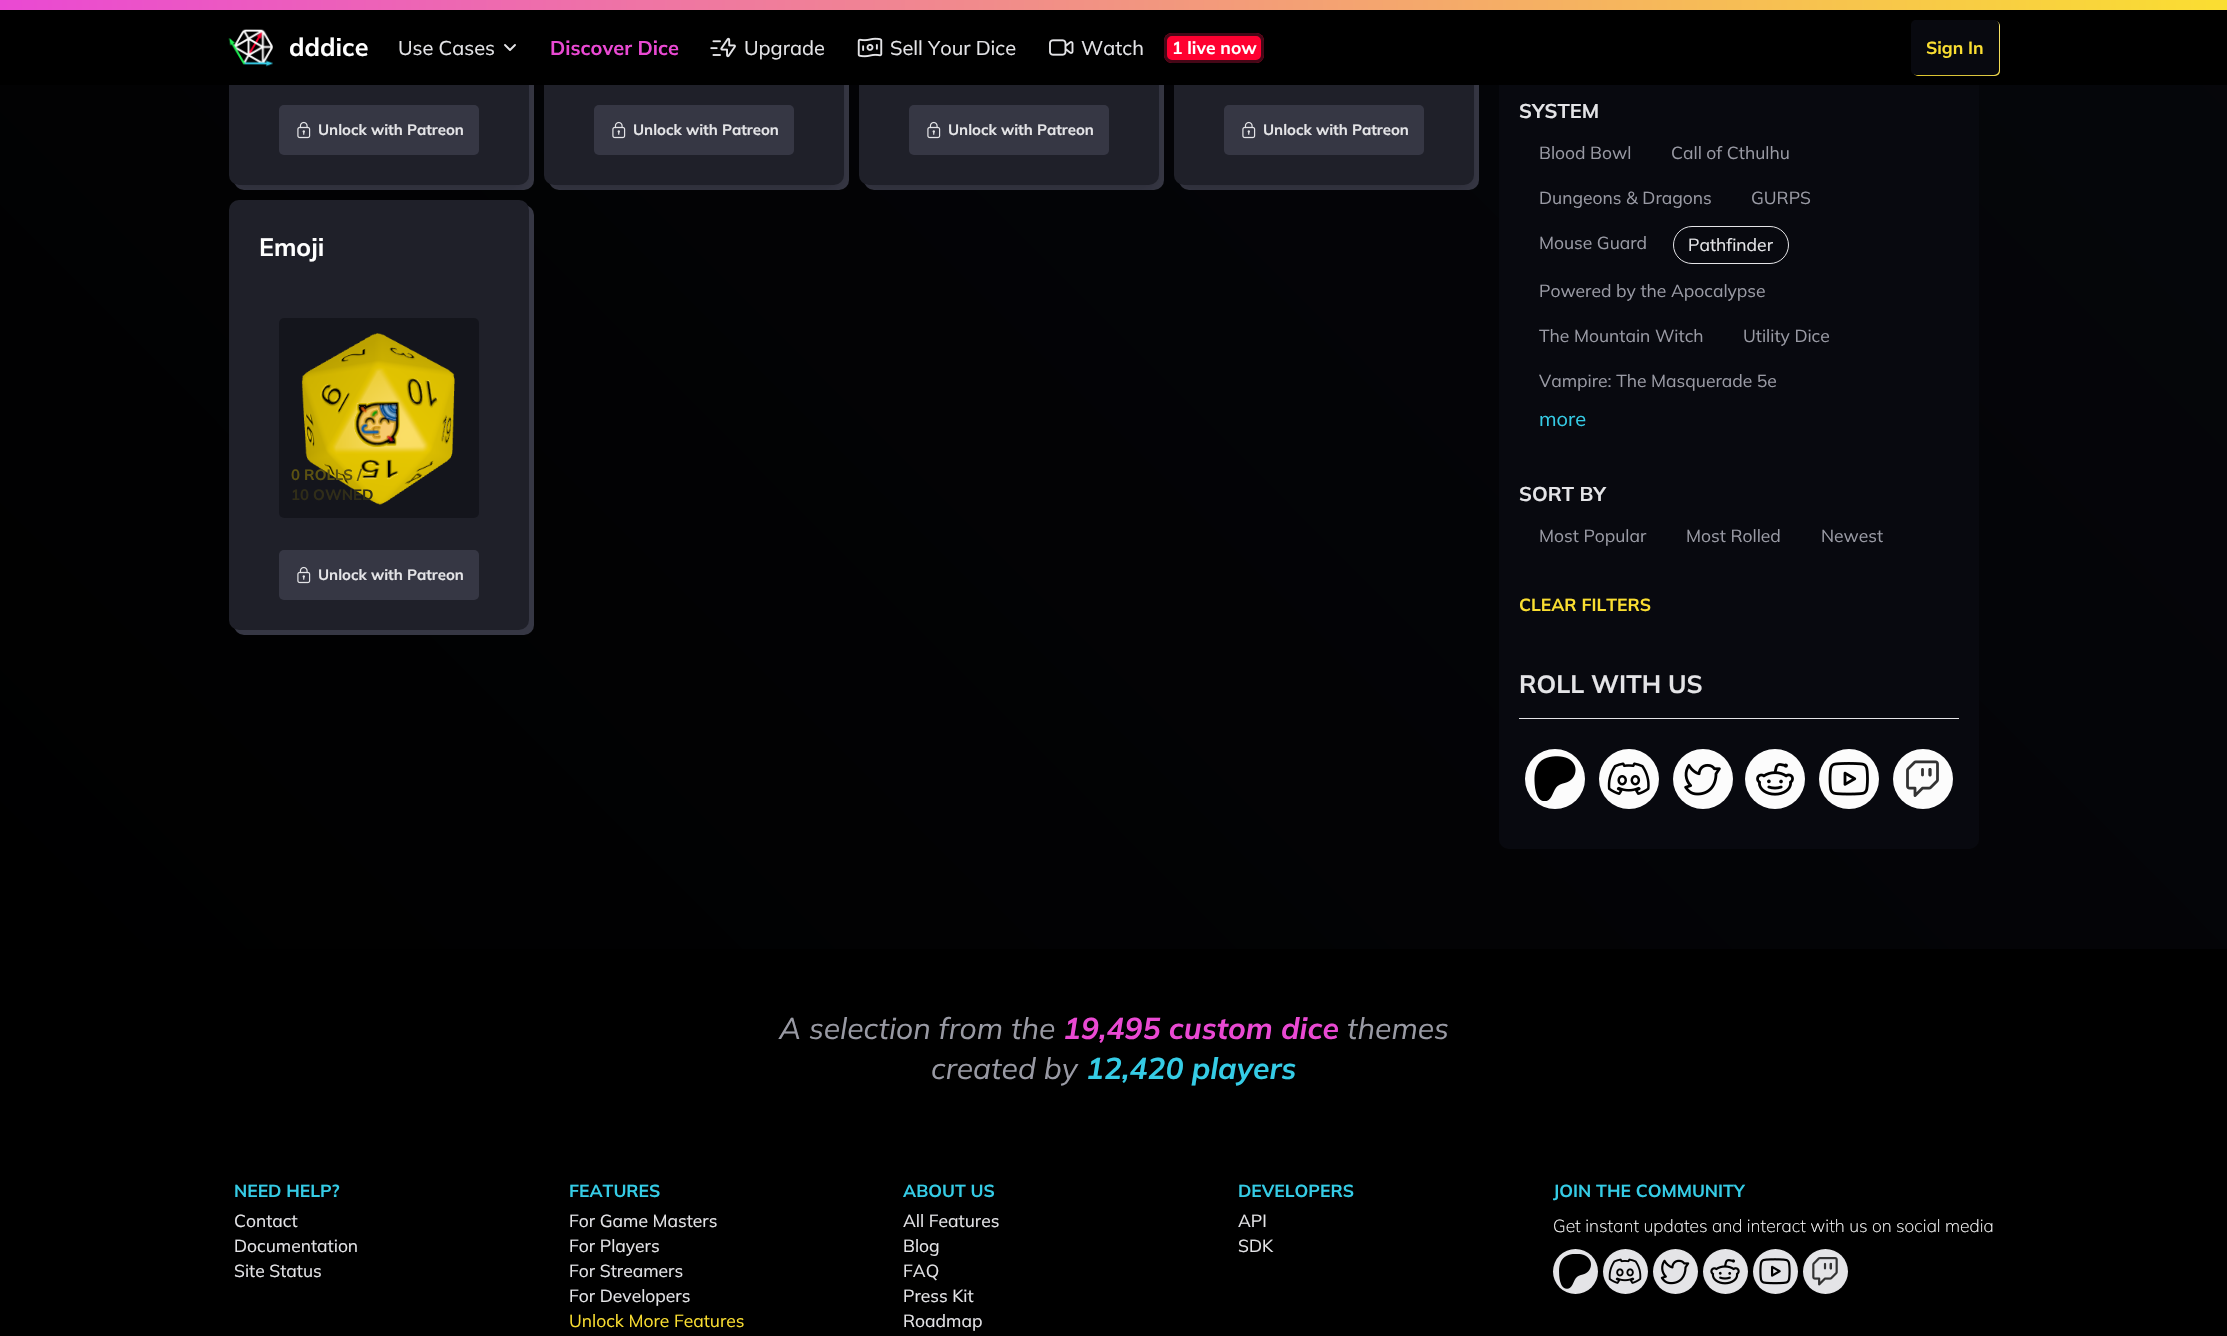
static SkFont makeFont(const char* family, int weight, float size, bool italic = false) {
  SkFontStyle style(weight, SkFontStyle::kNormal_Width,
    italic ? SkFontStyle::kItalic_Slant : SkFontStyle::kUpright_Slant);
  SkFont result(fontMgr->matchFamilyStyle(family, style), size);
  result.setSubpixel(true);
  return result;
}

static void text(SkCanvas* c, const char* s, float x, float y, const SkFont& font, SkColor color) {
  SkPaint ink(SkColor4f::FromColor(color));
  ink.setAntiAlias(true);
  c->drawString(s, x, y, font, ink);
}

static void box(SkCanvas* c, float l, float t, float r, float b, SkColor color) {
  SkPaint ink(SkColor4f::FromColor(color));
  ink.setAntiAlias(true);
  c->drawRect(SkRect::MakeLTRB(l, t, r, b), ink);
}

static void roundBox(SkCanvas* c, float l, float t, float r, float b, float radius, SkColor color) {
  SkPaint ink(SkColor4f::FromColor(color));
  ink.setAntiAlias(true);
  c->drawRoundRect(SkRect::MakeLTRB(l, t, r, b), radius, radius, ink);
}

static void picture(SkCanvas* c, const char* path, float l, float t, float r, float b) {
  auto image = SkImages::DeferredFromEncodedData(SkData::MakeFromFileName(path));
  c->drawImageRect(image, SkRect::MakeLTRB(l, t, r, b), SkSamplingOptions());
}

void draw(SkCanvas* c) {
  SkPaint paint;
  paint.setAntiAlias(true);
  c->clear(0xffffffff);
  {
    const SkColor colors[] = {0xff000000, 0xff08090f};
    const float stops[] = {0, 1};
    const SkPoint ends[] = {{-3.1f, 946}, {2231, -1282}};
    paint.setShader(SkGradientShader::MakeLinear(ends, colors, stops, 2, SkTileMode::kClamp));
    paint.setAlpha(255);
  }
  c->drawRect(SkRect::MakeLTRB(0, 85, 2227, 949), paint);
  roundBox(c, 234, -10, 534, 190, 10, 0xff363744);
  paint.setShader(nullptr);
  paint.setColor(0x1a000000);
  paint.setMaskFilter(SkMaskFilter::MakeBlur(kNormal_SkBlurStyle, 4));
  c->drawRoundRect(SkRect::MakeLTRB(234, -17, 524, 185), 5, 5, paint);
  paint.setMaskFilter(nullptr);
  roundBox(c, 549, -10, 849, 190, 10, 0xff363744);
  roundBox(c, 234, 205, 534, 635, 10, 0xff363744);
  paint.setMaskFilter(SkMaskFilter::MakeBlur(kNormal_SkBlurStyle, 9.5f));
  c->drawRoundRect(SkRect::MakeLTRB(233, -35, 525, 194), 6, 6, paint);
  paint.setMaskFilter(nullptr);
  roundBox(c, 229, -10, 529, 185, 10, 0xff1f2029);
  paint.setMaskFilter(SkMaskFilter::MakeBlur(kNormal_SkBlurStyle, 4));
  c->drawRoundRect(SkRect::MakeLTRB(549, -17, 839, 185), 5, 5, paint);
  paint.setMaskFilter(nullptr);
  roundBox(c, 864, -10, 1164, 190, 10, 0xff363744);
  paint.setMaskFilter(SkMaskFilter::MakeBlur(kNormal_SkBlurStyle, 9.5f));
  c->drawRoundRect(SkRect::MakeLTRB(548, -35, 840, 194), 6, 6, paint);
  paint.setMaskFilter(nullptr);
  roundBox(c, 544, -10, 844, 185, 10, 0xff1f2029);
  paint.setMaskFilter(SkMaskFilter::MakeBlur(kNormal_SkBlurStyle, 4));
  c->drawRoundRect(SkRect::MakeLTRB(864, -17, 1154, 185), 5, 5, paint);
  paint.setMaskFilter(nullptr);
  roundBox(c, 1179, -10, 1479, 190, 10, 0xff363744);
  paint.setMaskFilter(SkMaskFilter::MakeBlur(kNormal_SkBlurStyle, 9.5f));
  c->drawRoundRect(SkRect::MakeLTRB(863, -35, 1155, 194), 6, 6, paint);
  paint.setMaskFilter(nullptr);
  roundBox(c, 859, -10, 1159, 185, 10, 0xff1f2029);
  paint.setMaskFilter(SkMaskFilter::MakeBlur(kNormal_SkBlurStyle, 4));
  c->drawRoundRect(SkRect::MakeLTRB(1179, -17, 1469, 185), 5, 5, paint);
  paint.setMaskFilter(nullptr);
  roundBox(c, 1499, -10, 1979, 849, 10, 0xff08090f);
  paint.setMaskFilter(SkMaskFilter::MakeBlur(kNormal_SkBlurStyle, 9.5f));
  c->drawRoundRect(SkRect::MakeLTRB(1178, -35, 1470, 194), 6, 6, paint);
  paint.setMaskFilter(nullptr);
  roundBox(c, 1174, -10, 1474, 185, 10, 0xff1f2029);
  {
    const SkColor colors[] = {0xffea49d3, 0xfffade31};
    const float stops[] = {0, 1};
    const SkPoint ends[] = {{0, 5}, {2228, 5}};
    paint.setShader(SkGradientShader::MakeLinear(ends, colors, stops, 2, SkTileMode::kClamp));
    paint.setAlpha(255);
  }
  c->drawRect(SkRect::MakeLTRB(0, 0, 2227, 10), paint);
  box(c, 0, 10, 2227, 85, 0xff000000);
  picture(c, "img_01.png", 228, 29, 273, 67);
  SkFont face1 = makeFont("Mulish", 700, 25);
  text(c, "dddice", 289, 56, face1, 0xffffffff);
  SkFont face2 = makeFont("Mulish", 400, 20);
  text(c, "Use Cases", 398, 55, face2, 0xffe4e4e7);
  paint.setStyle(SkPaint::kStroke_Style);
  paint.setStrokeWidth(1.9f);
  paint.setStrokeCap(SkPaint::kRound_Cap);
  paint.setStrokeJoin(SkPaint::kRound_Join);
  paint.setShader(nullptr);
  paint.setColor(0xffe4e4e7);
  c->drawPath(SkPathBuilder().moveTo(505, 45).lineTo(510, 50).lineTo(515, 45).detach(), paint);
  SkFont face3 = makeFont("Mulish", 700, 20);
  text(c, "Discover Dice", 550, 55, face3, 0xffea49d3);
  picture(c, "img_02.png", 710, 37, 736, 58);
  text(c, "Upgrade", 744, 55, face2, 0xffe4e4e7);
  picture(c, "img_03.png", 857, 37, 883, 58);
  text(c, "Sell Your Dice", 890, 55, face2, 0xffe4e4e7);
  picture(c, "img_04.png", 1049, 39, 1074, 56);
  text(c, "Watch", 1081, 55, face2, 0xffe4e4e7);
  roundBox(c, 1164, 33, 1264, 63, 8, 0xffff0030);
  paint.setStrokeWidth(3);
  paint.setStrokeCap(SkPaint::kButt_Cap);
  paint.setStrokeJoin(SkPaint::kMiter_Join);
  paint.setColor(0xbf08090f);
  c->drawRoundRect(SkRect::MakeLTRB(1165.5f, 34.5f, 1262.5f, 61.5f), 6.5f, 6.5f, paint);
  SkFont face4 = makeFont("Mulish", 700, 17.5f);
  text(c, "1 live now", 1172, 54, face4, 0xffffffff);
  paint.setStyle(SkPaint::kFill_Style);
  {
    const SkColor colors[] = {0xfffade31, 0xfffde96f};
    const float stops[] = {0, 1};
    const SkPoint ends[] = {{1931, 88}, {1981, 9}};
    paint.setShader(SkGradientShader::MakeLinear(ends, colors, stops, 2, SkTileMode::kClamp));
    paint.setAlpha(255);
  }
  c->drawRoundRect(SkRect::MakeLTRB(1913, 21, 2000, 76), 5, 5, paint);
  paint.setShader(nullptr);
  paint.setColor(0x1a000000);
  paint.setMaskFilter(SkMaskFilter::MakeBlur(kNormal_SkBlurStyle, 4));
  c->drawRect(SkRect::MakeLTRB(1916, 30, 1994, 75), paint);
  paint.setMaskFilter(nullptr);
  paint.setMaskFilter(SkMaskFilter::MakeBlur(kNormal_SkBlurStyle, 9.5f));
  c->drawRoundRect(SkRect::MakeLTRB(1915, 36, 1995, 84), 1, 1, paint);
  paint.setMaskFilter(nullptr);
  roundBox(c, 1911, 20, 1999, 75, 5, 0xff08090f);
  text(c, "Sign In", 1926, 54, face4, 0xfffade31);
  roundBox(c, 279, 105, 479, 155, 5, 0xff363744);
  picture(c, "img_05.png", 297, 121, 311, 139);
  SkFont face5 = makeFont("Mulish", 700, 15);
  text(c, "Unlock with Patreon", 318, 135, face5, 0xffe4e4e7);
  roundBox(c, 594, 105, 794, 155, 5, 0xff363744);
  picture(c, "img_05.png", 612, 121, 626, 139);
  text(c, "Unlock with Patreon", 633, 135, face5, 0xffe4e4e7);
  roundBox(c, 909, 105, 1109, 155, 5, 0xff363744);
  picture(c, "img_05.png", 927, 121, 941, 139);
  text(c, "Unlock with Patreon", 948, 135, face5, 0xffe4e4e7);
  roundBox(c, 1224, 105, 1424, 155, 5, 0xff363744);
  picture(c, "img_05.png", 1242, 121, 1256, 139);
  text(c, "Unlock with Patreon", 1263, 135, face5, 0xffe4e4e7);
  roundBox(c, 229, 200, 529, 630, 10, 0xff1f2029);
  text(c, "Emoji", 259, 256, face1, 0xffffffff);
  roundBox(c, 279, 318, 479, 518, 5, 0xff14151c);
  picture(c, "img_06.png", 301, 333, 455, 505);
  text(c, "0 ROLLS /", 291, 480, face5, 0xff5c5211);
  text(c, "10 OWNED", 291, 500, face5, 0xff302d18);
  roundBox(c, 279, 550, 479, 600, 5, 0xff363744);
  picture(c, "img_05.png", 297, 566, 311, 584);
  text(c, "Unlock with Patreon", 318, 580, face5, 0xffe4e4e7);
  text(c, "SYSTEM", 1519, 118, face3, 0xffe4e4e7);
  SkFont face6 = makeFont("Mulish", 400, 17.5f);
  text(c, "Blood Bowl", 1539, 159, face6, 0xff999aa4);
  text(c, "Call of Cthulhu", 1671, 159, face6, 0xff999aa4);
  text(c, "Dungeons & Dragons", 1539, 204, face6, 0xff999aa4);
  text(c, "GURPS", 1751, 204, face6, 0xff999aa4);
  text(c, "Mouse Guard", 1539, 249, face6, 0xff999aa4);
  paint.setStyle(SkPaint::kStroke_Style);
  paint.setStrokeWidth(1);
  paint.setColor(0xffe4e4e7);
  c->drawRoundRect(SkRect::MakeLTRB(1673.5f, 226.5f, 1788.5f, 263.5f), 18.5f, 18.5f, paint);
  text(c, "Pathfinder", 1688, 251, face6, 0xffe4e4e7);
  text(c, "Powered by the Apocalypse", 1539, 297, face6, 0xff999aa4);
  text(c, "The Mountain Witch", 1539, 342, face6, 0xff999aa4);
  text(c, "Utility Dice", 1743, 342, face6, 0xff999aa4);
  text(c, "Vampire: The Masquerade 5e", 1539, 387, face6, 0xff999aa4);
  text(c, "more", 1539, 426, face2, 0xff35cce6);
  text(c, "SORT BY", 1519, 501, face3, 0xffe4e4e7);
  text(c, "Most Popular", 1539, 542, face6, 0xff999aa4);
  text(c, "Most Rolled", 1686, 542, face6, 0xff999aa4);
  text(c, "Newest", 1821, 542, face6, 0xff999aa4);
  text(c, "CLEAR FILTERS", 1519, 611, face4, 0xfffade31);
  box(c, 1519, 718, 1959, 719, 0xffe4e4e7);
  text(c, "ROLL WITH US", 1519, 693, face1, 0xffe4e4e7);
  paint.setStyle(SkPaint::kFill_Style);
  paint.setColor(0xfffcfcfc);
  c->drawCircle(1555, 779, 30, paint);
  picture(c, "img_07.png", 1534, 756, 1576, 801);
  c->drawCircle(1629, 779, 30, paint);
  picture(c, "img_08.png", 1607, 762, 1650, 795);
  c->drawCircle(1703, 779, 30, paint);
  picture(c, "img_09.png", 1684, 763, 1721, 796);
  c->drawCircle(1775, 779, 30, paint);
  picture(c, "img_10.png", 1756, 763, 1794, 796);
  c->drawCircle(1849, 779, 30, paint);
  picture(c, "img_11.png", 1828, 762, 1869, 796);
  c->drawCircle(1923, 779, 30, paint);
  picture(c, "img_12.png", 1906, 760, 1939, 797);
  box(c, 0, 949, 2227, 1336, 0xff000000);
  SkFont face7 = makeFont("Mulish", 400, 30, true);
  text(c, "A selection from the", 779, 1039, face7, 0xff999aa4);
  SkFont face8 = makeFont("Mulish", 700, 30, true);
  text(c, "19,495 custom dice", 1063, 1039, face8, 0xffea49d3);
  text(c, "themes", 1347, 1039, face7, 0xff999aa4);
  text(c, "created by", 931, 1079, face7, 0xff999aa4);
  text(c, "12,420 players", 1086, 1079, face8, 0xff35cce6);
  text(c, "NEED HELP?", 234, 1197, face4, 0xff35cce6);
  text(c, "Contact", 234, 1227, face6, 0xffe4e4e7);
  text(c, "Documentation", 234, 1252, face6, 0xffe4e4e7);
  text(c, "Site Status", 234, 1277, face6, 0xffe4e4e7);
  text(c, "FEATURES", 569, 1197, face4, 0xff35cce6);
  text(c, "For Game Masters", 569, 1227, face6, 0xffe4e4e7);
  text(c, "For Players", 569, 1252, face6, 0xffe4e4e7);
  text(c, "For Streamers", 569, 1277, face6, 0xffe4e4e7);
  text(c, "For Developers", 569, 1302, face6, 0xffe4e4e7);
  text(c, "Unlock More Features", 569, 1327, face6, 0xfffade31);
  text(c, "ABOUT US", 903, 1197, face4, 0xff35cce6);
  text(c, "All Features", 903, 1227, face6, 0xffe4e4e7);
  text(c, "Blog", 903, 1252, face6, 0xffe4e4e7);
  text(c, "FAQ", 903, 1277, face6, 0xffe4e4e7);
  text(c, "Press Kit", 903, 1302, face6, 0xffe4e4e7);
  text(c, "Roadmap", 903, 1327, face6, 0xffe4e4e7);
  text(c, "DEVELOPERS", 1238, 1197, face4, 0xff35cce6);
  text(c, "API", 1238, 1227, face6, 0xffe4e4e7);
  text(c, "SDK", 1238, 1252, face6, 0xffe4e4e7);
  text(c, "JOIN THE COMMUNITY", 1553, 1197, face4, 0xff35cce6);
  SkFont face9 = makeFont("Mulish", 200, 17.5f);
  text(c, "Get instant updates and interact with us on social media", 1553, 1232, face9, 0xffffffff);
  paint.setColor(0xffe4e4e7);
  c->drawCircle(1575.5f, 1271.5f, 22.5f, paint);
  picture(c, "img_13.png", 1559, 1254, 1591, 1289);
  c->drawCircle(1625.5f, 1271.5f, 22.5f, paint);
  picture(c, "img_14.png", 1608, 1258, 1642, 1284);
  c->drawCircle(1675.5f, 1271.5f, 22.5f, paint);
  picture(c, "img_15.png", 1660, 1259, 1690, 1285);
  c->drawCircle(1725.5f, 1271.5f, 22.5f, paint);
  picture(c, "img_16.png", 1710, 1259, 1740, 1285);
  c->drawCircle(1775.5f, 1271.5f, 22.5f, paint);
  picture(c, "img_17.png", 1759, 1258, 1791, 1285);
  c->drawCircle(1825.5f, 1271.5f, 22.5f, paint);
  picture(c, "img_18.png", 1812, 1257, 1838, 1286);
}
